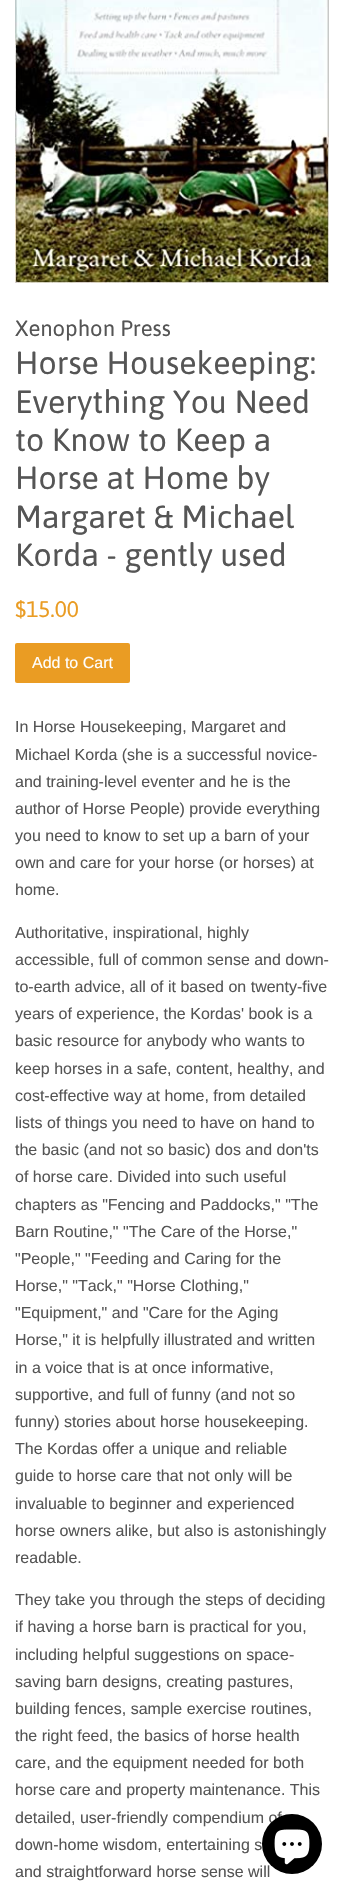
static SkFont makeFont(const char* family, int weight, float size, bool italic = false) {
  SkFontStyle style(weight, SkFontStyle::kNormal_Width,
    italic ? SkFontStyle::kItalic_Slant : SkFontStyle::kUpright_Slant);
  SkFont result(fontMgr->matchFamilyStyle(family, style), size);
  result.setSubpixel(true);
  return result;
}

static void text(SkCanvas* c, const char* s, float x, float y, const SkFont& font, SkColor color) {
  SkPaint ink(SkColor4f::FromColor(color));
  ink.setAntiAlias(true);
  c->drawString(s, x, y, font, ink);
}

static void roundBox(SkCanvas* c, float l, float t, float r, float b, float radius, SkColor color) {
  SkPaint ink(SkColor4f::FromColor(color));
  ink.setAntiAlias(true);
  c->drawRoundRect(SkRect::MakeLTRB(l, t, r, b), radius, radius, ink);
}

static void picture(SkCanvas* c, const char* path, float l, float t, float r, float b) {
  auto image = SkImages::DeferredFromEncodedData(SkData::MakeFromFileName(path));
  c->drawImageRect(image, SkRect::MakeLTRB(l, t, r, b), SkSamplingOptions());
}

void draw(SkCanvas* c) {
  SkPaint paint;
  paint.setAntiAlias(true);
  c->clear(0xffffffff);
  picture(c, "img_01.png", 15, 0, 329, 283);
  SkFont face1 = makeFont("Asap", 400, 22);
  text(c, "Xenophon Press", 15, 336, face1, 0xff555555);
  SkFont face2 = makeFont("Asap", 400, 32);
  text(c, "Horse Housekeeping:", 15, 374, face2, 0xff555555);
  text(c, "Everything You Need", 15, 413, face2, 0xff555555);
  text(c, "to Know to Keep a", 15, 451, face2, 0xff555555);
  text(c, "Horse at Home by", 15, 489, face2, 0xff555555);
  text(c, "Margaret & Michael", 15, 528, face2, 0xff555555);
  text(c, "Korda - gently used", 15, 566, face2, 0xff555555);
  SkFont face3 = makeFont("Asap", 400, 22.5f);
  text(c, "$15.00", 15, 617, face3, 0xffea9c23);
  roundBox(c, 15, 643, 130, 683, 2, 0xffea9c23);
  SkFont face4 = makeFont("Liberation Sans", 400, 16);
  text(c, "Add to Cart", 32, 668, face4, 0xffffffff);
  text(c, "In Horse Housekeeping, Margaret and", 15, 732, face4, 0xff555555);
  text(c, "Michael Korda (she is a successful novice-", 15, 760, face4, 0xff555555);
  text(c, "and training-level eventer and he is the", 15, 787, face4, 0xff555555);
  text(c, "author of Horse People) provide everything", 15, 814, face4, 0xff555555);
  text(c, "you need to know to set up a barn of your", 15, 841, face4, 0xff555555);
  text(c, "own and care for your horse (or horses) at", 15, 868, face4, 0xff555555);
  text(c, "home.", 15, 895, face4, 0xff555555);
  text(c, "Authoritative, inspirational, highly", 15, 938, face4, 0xff555555);
  text(c, "accessible, full of common sense and down-", 15, 965, face4, 0xff555555);
  text(c, "to-earth advice, all of it based on twenty-five", 15, 992, face4, 0xff555555);
  text(c, "years of experience, the Kordas' book is a", 15, 1019, face4, 0xff555555);
  text(c, "basic resource for anybody who wants to", 15, 1046, face4, 0xff555555);
  text(c, "keep horses in a safe, content, healthy, and", 15, 1074, face4, 0xff555555);
  text(c, "cost-effective way at home, from detailed", 15, 1101, face4, 0xff555555);
  text(c, "lists of things you need to have on hand to", 15, 1128, face4, 0xff555555);
  text(c, "the basic (and not so basic) dos and don'ts", 15, 1155, face4, 0xff555555);
  text(c, "of horse care. Divided into such useful", 15, 1182, face4, 0xff555555);
  text(c, "chapters as \"Fencing and Paddocks,\" \"The", 15, 1210, face4, 0xff555555);
  text(c, "Barn Routine,\" \"The Care of the Horse,\"", 15, 1237, face4, 0xff555555);
  text(c, "\"People,\" \"Feeding and Caring for the", 15, 1264, face4, 0xff555555);
  text(c, "Horse,\" \"Tack,\" \"Horse Clothing,\"", 15, 1291, face4, 0xff555555);
  text(c, "\"Equipment,\" and \"Care for the Aging", 15, 1318, face4, 0xff555555);
  text(c, "Horse,\" it is helpfully illustrated and written", 15, 1345, face4, 0xff555555);
  text(c, "in a voice that is at once informative,", 15, 1373, face4, 0xff555555);
  text(c, "supportive, and full of funny (and not so", 15, 1400, face4, 0xff555555);
  text(c, "funny) stories about horse housekeeping.", 15, 1427, face4, 0xff555555);
  text(c, "The Kordas offer a unique and reliable", 15, 1454, face4, 0xff555555);
  text(c, "guide to horse care that not only will be", 15, 1481, face4, 0xff555555);
  text(c, "invaluable to beginner and experienced", 15, 1509, face4, 0xff555555);
  text(c, "horse owners alike, but also is astonishingly", 15, 1536, face4, 0xff555555);
  text(c, "readable.", 15, 1563, face4, 0xff555555);
  text(c, "They take you through the steps of deciding", 15, 1605, face4, 0xff555555);
  text(c, "if having a horse barn is practical for you,", 15, 1632, face4, 0xff555555);
  text(c, "including helpful suggestions on space-", 15, 1660, face4, 0xff555555);
  text(c, "saving barn designs, creating pastures,", 15, 1687, face4, 0xff555555);
  text(c, "building fences, sample exercise routines,", 15, 1714, face4, 0xff555555);
  text(c, "the right feed, the basics of horse health", 15, 1741, face4, 0xff555555);
  text(c, "care, and the equipment needed for both", 15, 1768, face4, 0xff555555);
  text(c, "horse care and property maintenance. This", 15, 1795, face4, 0xff555555);
  text(c, "detailed, user-friendly compendium of", 15, 1823, face4, 0xff555555);
  text(c, "down-home wisdom, entertaining s", 15, 1850, face4, 0xff555555);
  text(c, "and straightforward horse sense will", 15, 1877, face4, 0xff555555);
  paint.setColor(0xff000000);
  c->drawCircle(292, 1844, 30, paint);
  picture(c, "img_02.png", 274, 1829, 310, 1865);
}
